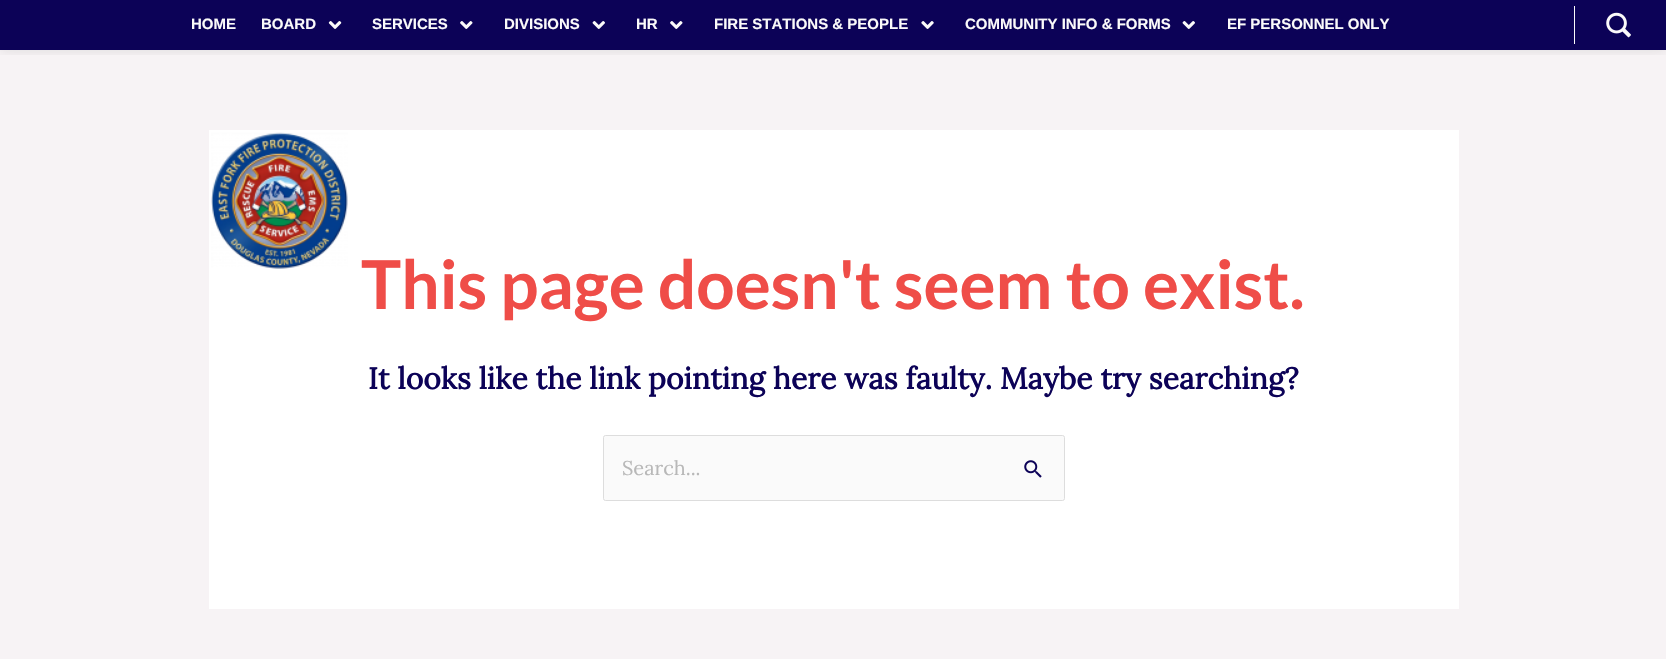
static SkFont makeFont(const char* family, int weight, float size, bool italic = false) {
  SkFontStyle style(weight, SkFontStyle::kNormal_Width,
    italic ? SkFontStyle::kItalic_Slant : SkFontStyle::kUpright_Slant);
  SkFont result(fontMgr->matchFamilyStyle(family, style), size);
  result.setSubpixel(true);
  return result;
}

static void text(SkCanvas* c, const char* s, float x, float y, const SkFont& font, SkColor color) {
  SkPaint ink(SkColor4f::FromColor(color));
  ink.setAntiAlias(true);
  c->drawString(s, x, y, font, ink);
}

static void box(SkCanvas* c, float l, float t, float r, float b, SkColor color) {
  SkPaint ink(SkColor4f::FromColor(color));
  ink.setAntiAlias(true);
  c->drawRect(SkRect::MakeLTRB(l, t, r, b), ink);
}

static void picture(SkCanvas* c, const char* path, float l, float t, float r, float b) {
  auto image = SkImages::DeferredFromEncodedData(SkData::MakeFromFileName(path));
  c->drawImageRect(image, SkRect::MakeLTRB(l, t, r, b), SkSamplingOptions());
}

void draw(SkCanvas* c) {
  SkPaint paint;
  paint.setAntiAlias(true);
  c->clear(0xfff7f3f5);
  box(c, 0, 0, 1666, 50, 0xff0c0257);
  c->save();
  c->clipRect(SkRect::MakeLTRB(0, 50, 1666, 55));
  paint.setColor(0x1a000000);
  paint.setMaskFilter(SkMaskFilter::MakeBlur(kNormal_SkBlurStyle, 6));
  c->drawRect(SkRect::MakeLTRB(0, 0, 1666, 50), paint);
  paint.setMaskFilter(nullptr);
  c->restore();
  SkFont face1 = makeFont("Liberation Sans", 700, 15);
  text(c, "HOME", 191, 29, face1, 0xfffbfafa);
  text(c, "BOARD", 261, 29, face1, 0xfffbfafa);
  picture(c, "img_01.png", 328, 21, 342, 29);
  text(c, "SERVICES", 372, 29, face1, 0xfffbfafa);
  picture(c, "img_02.png", 460, 21, 473, 29);
  text(c, "DIVISIONS", 504, 29, face1, 0xfffbfafa);
  picture(c, "img_03.png", 592, 21, 605, 29);
  text(c, "HR", 636, 29, face1, 0xfffbfafa);
  picture(c, "img_02.png", 670, 21, 683, 29);
  text(c, "FIRE STATIONS & PEOPLE", 714, 29, face1, 0xfffbfafa);
  picture(c, "img_04.png", 921, 21, 934, 29);
  text(c, "COMMUNITY INFO & FORMS", 965, 29, face1, 0xfffbfafa);
  picture(c, "img_03.png", 1182, 21, 1195, 29);
  text(c, "EF PERSONNEL ONLY", 1227, 29, face1, 0xfffbfafa);
  box(c, 1574, 6, 1575, 44, 0xfffbfafa);
  picture(c, "img_05.png", 1606, 12, 1631, 38);
  box(c, 209, 130, 1459, 609, 0xffffffff);
  picture(c, "img_06.png", 211, 132, 348, 269);
  SkFont face2 = makeFont("Lato", 700, 67.5f);
  text(c, "This page doesn't seem to exist.", 361, 309, face2, 0xffef4d48);
  SkFont face3 = makeFont("Lora", 700, 30);
  text(c, "It looks like the link pointing here was faulty. Maybe try searching?", 368, 389, face3, 0xff0c0257);
  paint.setColor(0xfffafafa);
  c->drawRoundRect(SkRect::MakeLTRB(603.5f, 435.5f, 1064.5f, 500.5f), 2, 2, paint);
  paint.setStyle(SkPaint::kStroke_Style);
  paint.setStrokeWidth(1);
  paint.setColor(0xffdddddd);
  c->drawRoundRect(SkRect::MakeLTRB(603.5f, 435.5f, 1064.5f, 500.5f), 2, 2, paint);
  SkFont face4 = makeFont("Lora", 400, 20);
  text(c, "Search...", 622, 475, face4, 0xffb8b8b8);
  picture(c, "img_07.png", 1024, 460, 1042, 478);
}
